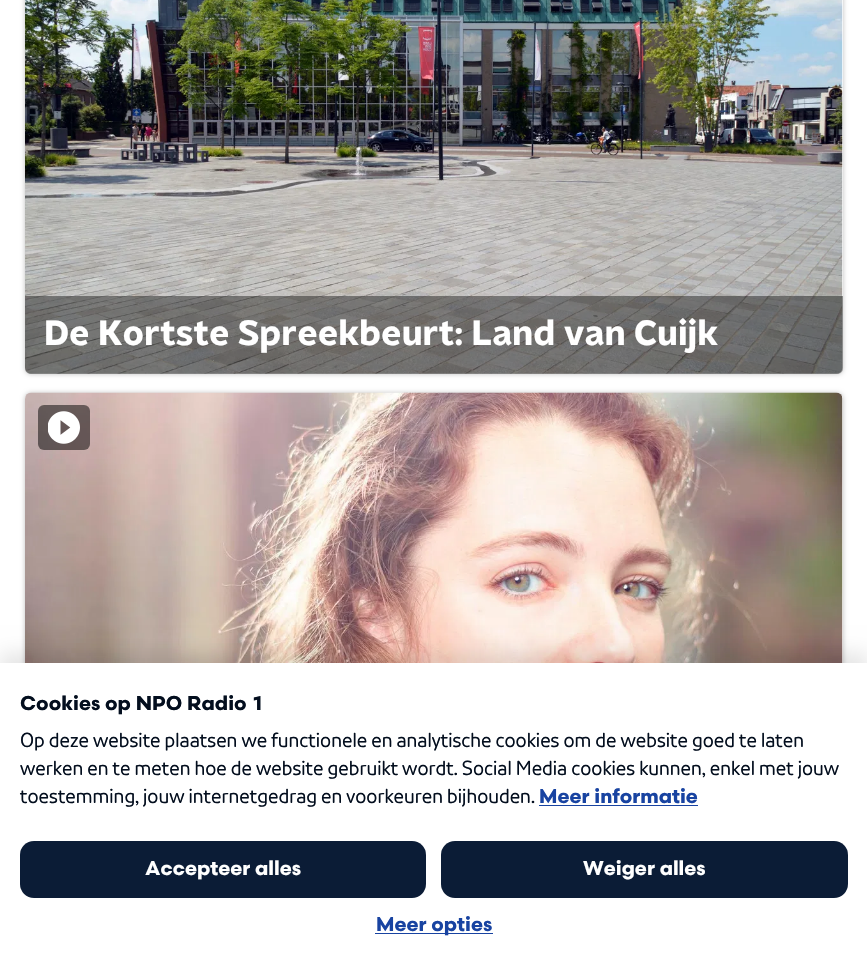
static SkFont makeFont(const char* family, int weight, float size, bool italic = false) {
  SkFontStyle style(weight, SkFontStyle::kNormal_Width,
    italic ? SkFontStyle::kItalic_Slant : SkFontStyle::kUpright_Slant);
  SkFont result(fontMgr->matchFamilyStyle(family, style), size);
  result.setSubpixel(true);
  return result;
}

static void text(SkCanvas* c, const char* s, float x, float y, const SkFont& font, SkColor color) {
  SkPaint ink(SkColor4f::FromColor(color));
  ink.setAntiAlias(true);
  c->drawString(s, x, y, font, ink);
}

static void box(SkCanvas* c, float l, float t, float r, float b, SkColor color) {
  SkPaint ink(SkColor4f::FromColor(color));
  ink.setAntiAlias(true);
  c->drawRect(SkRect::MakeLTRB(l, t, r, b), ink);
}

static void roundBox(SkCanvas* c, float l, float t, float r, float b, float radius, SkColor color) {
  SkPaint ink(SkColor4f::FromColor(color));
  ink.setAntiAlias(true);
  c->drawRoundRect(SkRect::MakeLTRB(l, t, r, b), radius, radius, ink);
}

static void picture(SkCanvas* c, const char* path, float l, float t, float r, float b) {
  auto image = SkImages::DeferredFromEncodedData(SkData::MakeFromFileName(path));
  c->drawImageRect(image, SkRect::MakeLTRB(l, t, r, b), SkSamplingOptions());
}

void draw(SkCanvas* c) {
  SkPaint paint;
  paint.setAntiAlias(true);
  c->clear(0xffffffff);
  paint.setColor(0x40000000);
  paint.setMaskFilter(SkMaskFilter::MakeBlur(kNormal_SkBlurStyle, 2.5f));
  c->drawRoundRect(SkRect::MakeLTRB(25, -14, 843, 374), 6, 6, paint);
  paint.setMaskFilter(nullptr);
  roundBox(c, 25, -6, 843, 374, 6, 0xffffffff);
  picture(c, "img_01.png", 25, 0, 843, 374);
  paint.setColor(0x66000000);
  c->drawPath(SkPathBuilder().moveTo(25, 296).lineTo(843, 296).lineTo(843, 368).cubicTo(843, 371.5f, 840.5f, 374, 837, 374).lineTo(31, 374).cubicTo(27.5f, 374, 25, 371.5f, 25, 368).close().detach(), paint);
  SkFont face1 = makeFont("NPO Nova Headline", 700, 35);
  text(c, "De Kortste Spreekbeurt: Land van Cuijk", 44, 345, face1, 0xffffffff);
  paint.setColor(0x40000000);
  paint.setMaskFilter(SkMaskFilter::MakeBlur(kNormal_SkBlurStyle, 2.5f));
  c->drawRoundRect(SkRect::MakeLTRB(25, 393, 843, 853), 6, 6, paint);
  paint.setMaskFilter(nullptr);
  roundBox(c, 25, 393, 843, 853, 6, 0xffffffff);
  picture(c, "img_02.png", 25, 392, 843, 663);
  roundBox(c, 38, 405, 90, 450, 6, 0x80000000);
  picture(c, "img_03.png", 48, 411, 80, 444);
  paint.setColor(0x1a000000);
  paint.setMaskFilter(SkMaskFilter::MakeBlur(kNormal_SkBlurStyle, 9.5f));
  c->drawRect(SkRect::MakeLTRB(0, 653, 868, 960), paint);
  paint.setMaskFilter(nullptr);
  box(c, 0, 663, 867, 969, 0xffffffff);
  SkFont face2 = makeFont("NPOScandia", 700, 20);
  text(c, "Cookies op NPO Radio 1", 20, 710, face2, 0xff030e1e);
  SkFont face3 = makeFont("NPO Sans", 400, 20);
  text(c, "Op deze website plaatsen we functionele en analytische cookies om de website goed te laten", 20, 747, face3, 0xff030e1e);
  text(c, "werken en te meten hoe de website gebruikt wordt. Social Media cookies kunnen, enkel met jouw", 20, 775, face3, 0xff030e1e);
  text(c, "toestemming, jouw internetgedrag en voorkeuren bijhouden.", 20, 803, face3, 0xff030e1e);
  text(c, "Meer informatie", 539, 803, face2, 0xff1843a1);
  box(c, 539, 805, 698, 806, 0xff1843a1);
  roundBox(c, 20, 841, 426, 898, 14, 0xff0b1c36);
  text(c, "Accepteer alles", 145, 875, face2, 0xffffffff);
  roundBox(c, 441, 841, 848, 898, 14, 0xff0b1c36);
  text(c, "Weiger alles", 583, 875, face2, 0xffffffff);
  box(c, 375, 933, 493, 934, 0xff1843a1);
  text(c, "Meer opties", 376, 931, face2, 0xff1843a1);
}
